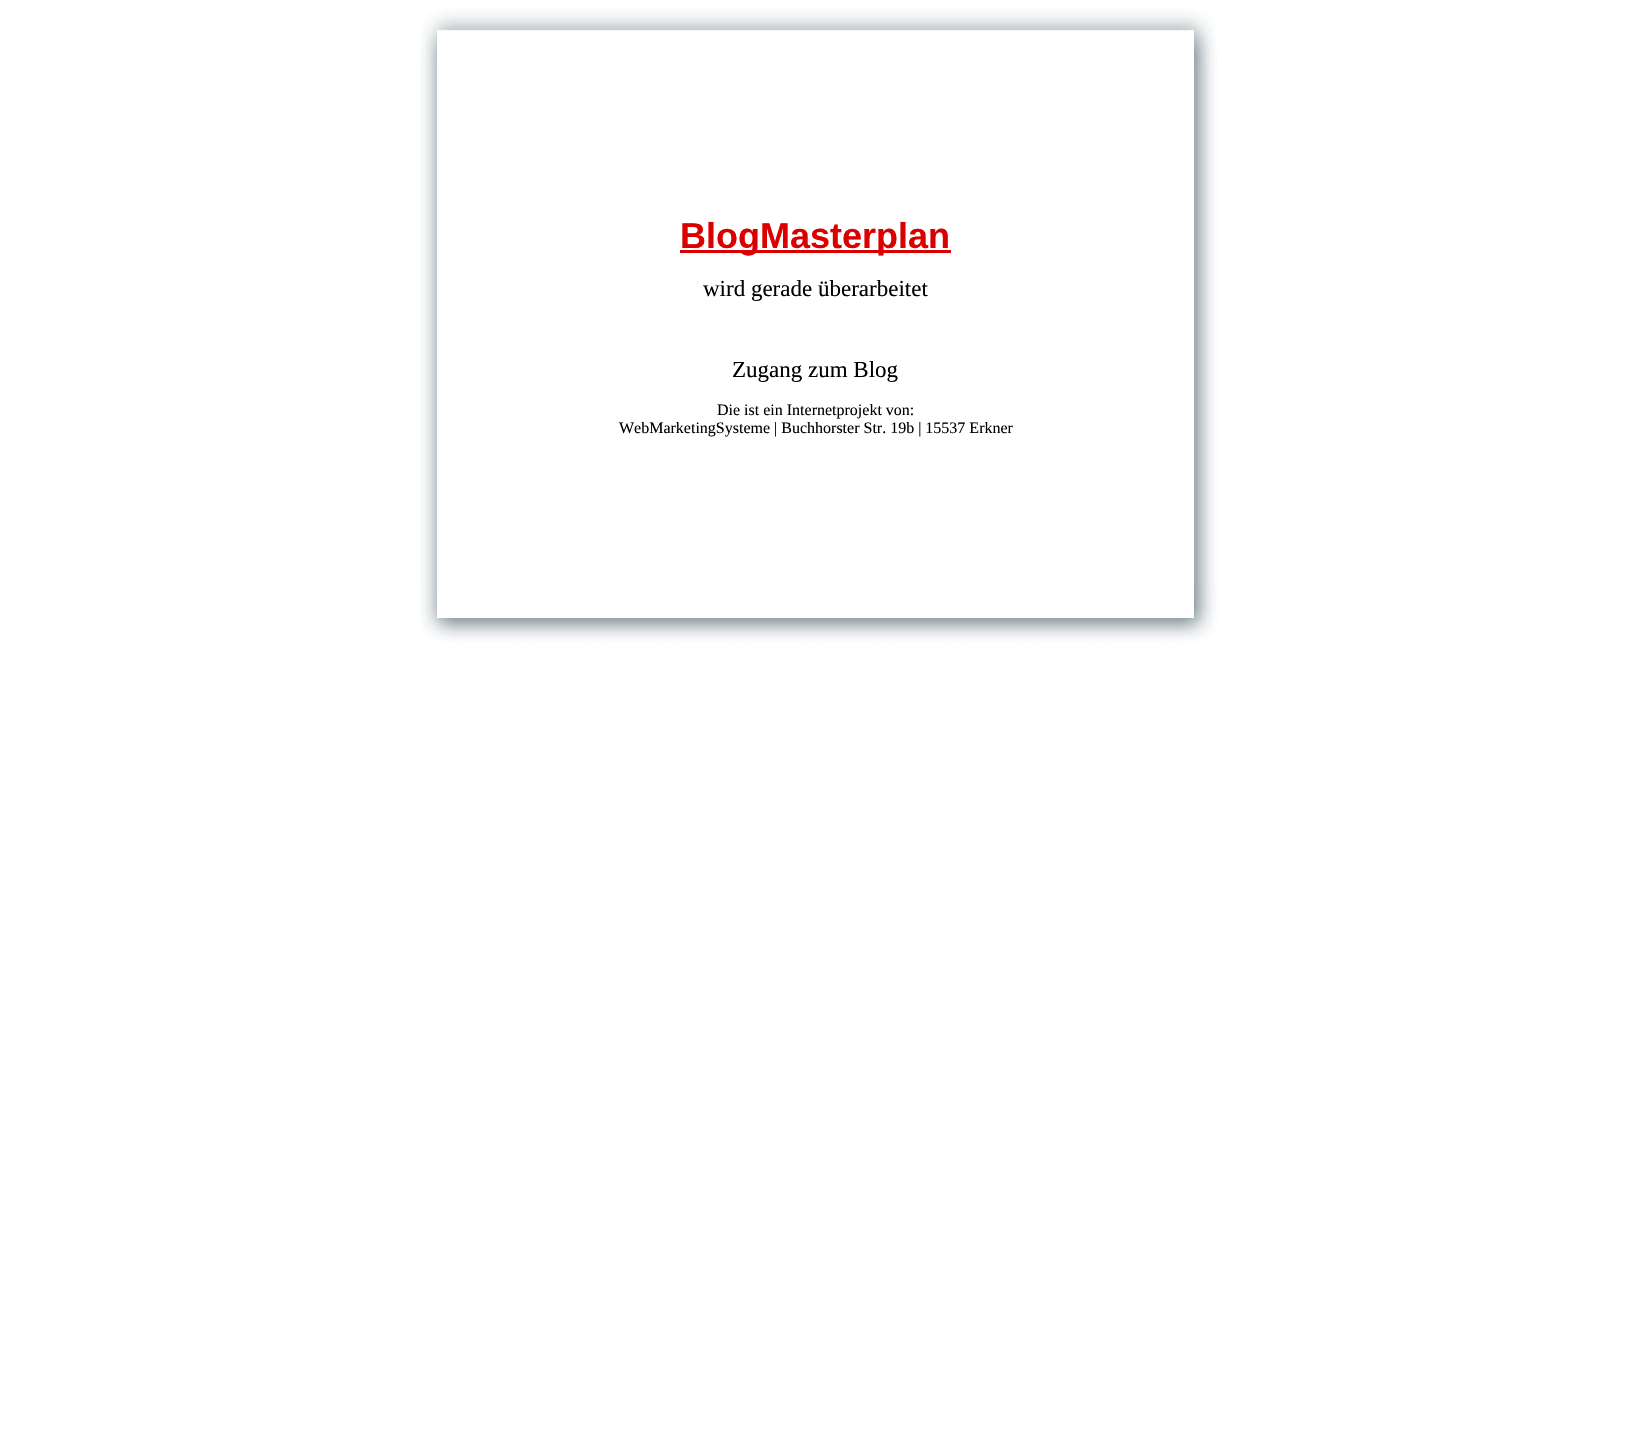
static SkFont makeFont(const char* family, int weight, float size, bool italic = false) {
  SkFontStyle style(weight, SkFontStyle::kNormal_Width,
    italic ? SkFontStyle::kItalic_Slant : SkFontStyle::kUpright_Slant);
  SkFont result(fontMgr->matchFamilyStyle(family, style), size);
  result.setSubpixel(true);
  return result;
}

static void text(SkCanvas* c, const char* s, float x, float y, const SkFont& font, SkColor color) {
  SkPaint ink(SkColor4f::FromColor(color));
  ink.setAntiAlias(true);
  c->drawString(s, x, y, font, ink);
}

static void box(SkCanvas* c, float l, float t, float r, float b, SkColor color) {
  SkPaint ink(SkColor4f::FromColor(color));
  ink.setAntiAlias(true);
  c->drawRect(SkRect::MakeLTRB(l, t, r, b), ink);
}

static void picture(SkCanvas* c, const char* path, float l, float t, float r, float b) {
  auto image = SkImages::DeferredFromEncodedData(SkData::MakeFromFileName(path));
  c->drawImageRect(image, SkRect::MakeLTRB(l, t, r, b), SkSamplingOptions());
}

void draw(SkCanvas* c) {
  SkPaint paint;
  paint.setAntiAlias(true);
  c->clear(0xffffffff);
  picture(c, "img_01.png", 420, 8, 1218, 65);
  picture(c, "img_02.png", 420, 65, 437, 587);
  box(c, 680, 250, 951, 253, 0xffdb0000);
  SkFont face1 = makeFont("Liberation Sans", 700, 36);
  text(c, "BlogMasterplan", 680, 248, face1, 0xffdb0000);
  SkFont face2 = makeFont("Liberation Serif", 400, 23);
  text(c, "wird gerade überarbeitet", 703, 296, face2, 0xff000000);
  text(c, "Zugang zum Blog", 732, 377, face2, 0xff000000);
  SkFont face3 = makeFont("Liberation Serif", 400, 16);
  text(c, "Die ist ein Internetprojekt von:", 717, 415, face3, 0xff000000);
  text(c, "WebMarketingSysteme | Buchhorster Str. 19b | 15537 Erkner", 619, 433, face3, 0xff000000);
  picture(c, "img_03.png", 1194, 65, 1217, 587);
  picture(c, "img_04.png", 420, 587, 1218, 643);
}
